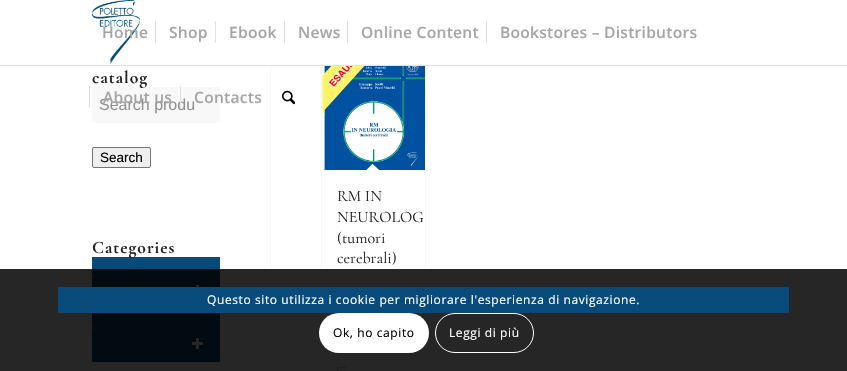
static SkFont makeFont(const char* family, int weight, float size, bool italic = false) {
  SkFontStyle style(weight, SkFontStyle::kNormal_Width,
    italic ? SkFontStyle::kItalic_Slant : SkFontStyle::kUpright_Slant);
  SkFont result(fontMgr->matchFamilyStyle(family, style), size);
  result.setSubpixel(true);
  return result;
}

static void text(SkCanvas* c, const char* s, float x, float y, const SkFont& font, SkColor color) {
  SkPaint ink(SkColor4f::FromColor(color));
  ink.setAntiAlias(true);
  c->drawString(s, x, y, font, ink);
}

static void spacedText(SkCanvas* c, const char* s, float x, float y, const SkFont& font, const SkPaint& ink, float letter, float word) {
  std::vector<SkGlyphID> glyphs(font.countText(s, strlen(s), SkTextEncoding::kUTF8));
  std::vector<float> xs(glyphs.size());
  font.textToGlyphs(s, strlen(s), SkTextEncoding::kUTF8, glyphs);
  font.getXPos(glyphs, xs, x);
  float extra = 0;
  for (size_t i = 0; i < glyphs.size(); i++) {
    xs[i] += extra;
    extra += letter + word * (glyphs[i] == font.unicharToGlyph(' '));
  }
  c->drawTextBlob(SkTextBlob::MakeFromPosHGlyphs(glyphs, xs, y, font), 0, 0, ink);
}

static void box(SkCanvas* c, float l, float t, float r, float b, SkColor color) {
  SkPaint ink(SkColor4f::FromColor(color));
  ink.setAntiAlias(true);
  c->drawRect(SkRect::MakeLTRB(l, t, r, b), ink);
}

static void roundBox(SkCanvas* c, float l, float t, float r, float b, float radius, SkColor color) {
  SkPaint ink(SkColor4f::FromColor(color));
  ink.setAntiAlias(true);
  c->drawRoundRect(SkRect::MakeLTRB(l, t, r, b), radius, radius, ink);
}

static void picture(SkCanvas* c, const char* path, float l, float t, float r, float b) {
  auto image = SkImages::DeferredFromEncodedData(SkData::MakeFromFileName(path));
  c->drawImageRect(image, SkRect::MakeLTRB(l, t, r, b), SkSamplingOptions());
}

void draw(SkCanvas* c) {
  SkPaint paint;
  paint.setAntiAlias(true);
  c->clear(0xffffffff);
  paint.setStyle(SkPaint::kStroke_Style);
  paint.setStrokeWidth(1);
  paint.setColor(0xfff8f8f8);
  c->drawRect(SkRect::MakeLTRB(321.5f, 39.5f, 425.5f, 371.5f), paint);
  box(c, 0, 65, 847, 66, 0xffe1e1e1);
  picture(c, "img_01.png", 92, 0, 140, 64);
  SkFont face1 = makeFont("Open Sans", 600, 15.6f);
  paint.setStyle(SkPaint::kFill_Style);
  paint.setColor(0xffa6a6a6);
  spacedText(c, "Home", 102, 38, face1, paint, 0.25f, 0);
  spacedText(c, "Shop", 169, 38, face1, paint, 0.25f, 0);
  box(c, 155, 21, 156, 43, 0xffe1e1e1);
  spacedText(c, "Ebook", 229, 38, face1, paint, 0.25f, 0);
  box(c, 215, 21, 216, 43, 0xffe1e1e1);
  spacedText(c, "News", 298, 38, face1, paint, 0.25f, 0);
  box(c, 284, 21, 285, 43, 0xffe1e1e1);
  spacedText(c, "Online Content", 361, 38, face1, paint, 0.25f, 0);
  box(c, 321, 39, 426, 65, 0xffffffff);
  box(c, 347, 21, 348, 43, 0xffe1e1e1);
  spacedText(c, "Bookstores – Distributors", 500, 38, face1, paint, 0.25f, 0);
  box(c, 486, 21, 487, 43, 0xffe1e1e1);
  box(c, 92, 87, 220, 123, 0xfff8f8f8);
  SkFont face2 = makeFont("Liberation Sans", 400, 16);
  text(c, "Search produ", 99, 110, face2, 0xff919191);
  spacedText(c, "About us", 103, 103, face1, paint, 0.25f, 0);
  box(c, 89, 86, 90, 108, 0xffe1e1e1);
  spacedText(c, "Contacts", 194, 103, face1, paint, 0.25f, 0);
  box(c, 180, 86, 181, 108, 0xffe1e1e1);
  picture(c, "img_02.png", 282, 90, 295, 105);
  SkFont face3 = makeFont("Cormorant Garamond", 700, 17.5f);
  paint.setColor(0xff222222);
  spacedText(c, "catalog", 92, 83, face3, paint, 1, 0);
  paint.setColor(0xffefefef);
  c->drawRoundRect(SkRect::MakeLTRB(92.5f, 147.5f, 150.5f, 167.5f), 1.5f, 1.5f, paint);
  paint.setStyle(SkPaint::kStroke_Style);
  paint.setColor(0xff767676);
  c->drawRoundRect(SkRect::MakeLTRB(92.5f, 147.5f, 150.5f, 167.5f), 1.5f, 1.5f, paint);
  SkFont face4 = makeFont("Liberation Sans", 400, 13.5f);
  text(c, "Search", 100, 162, face4, 0xff000000);
  box(c, 92, 257, 220, 287, 0xff084a79);
  paint.setStyle(SkPaint::kFill_Style);
  paint.setColor(0xff222222);
  spacedText(c, "Categories", 92, 253, face3, paint, 1, 0);
  picture(c, "img_03.png", 92, 273, 95, 278);
  picture(c, "img_04.png", 196, 285, 199, 287);
  box(c, 92, 313, 220, 362, 0xff084a79);
  picture(c, "img_03.png", 92, 326, 95, 331);
  box(c, 92, 362, 220, 363, 0xfff0f0f0);
  picture(c, "img_05.png", 192, 338, 203, 349);
  box(c, 270, 66, 271, 371, 0xfff8f8f8);
  picture(c, "img_06.png", 322, 66, 425, 170);
  box(c, 322, 170, 425, 171, 0xfff8f8f8);
  paint.setColor(0xffffffff);
  c->drawPath(SkPathBuilder().moveTo(372.5f, 164).lineTo(380, 171).lineTo(372.5f, 178).lineTo(365.5f, 171).close().detach(), paint);
  paint.setColor(0xfff8f8f8);
  c->drawPath(SkPathBuilder().moveTo(372.5f, 164).lineTo(380, 171).lineTo(379, 171.5f).lineTo(372, 164.5f).close().detach(), paint);
  c->drawPath(SkPathBuilder().moveTo(372.5f, 164).lineTo(373.5f, 164.5f).lineTo(366.5f, 171.5f).lineTo(365.5f, 171).close().detach(), paint);
  SkFont face5 = makeFont("Cormorant Garamond", 400, 16);
  text(c, "RM IN", 337, 201, face5, 0xff222222);
  text(c, "NEUROLOG", 337, 222, face5, 0xff222222);
  text(c, "(tumori", 337, 243, face5, 0xff222222);
  text(c, "cerebrali)", 337, 263, face5, 0xff222222);
  picture(c, "img_07.png", 337, 366, 346, 371);
  box(c, 0, 269, 847, 371, 0xd9000000);
  box(c, 58, 287, 789, 313, 0xff084a79);
  SkFont face6 = makeFont("Open Sans", 400, 12);
  paint.setColor(0xffffffff);
  spacedText(c, "Questo sito utilizza i cookie per migliorare l'esperienza di navigazione.", 207, 304, face6, paint, 0.6f, 0);
  roundBox(c, 319, 313, 429, 353, 20, 0xffffffff);
  paint.setColor(0xff000000);
  spacedText(c, "Ok, ho capito", 333, 337, face6, paint, 0.6f, 0);
  paint.setStyle(SkPaint::kStroke_Style);
  paint.setColor(0xffffffff);
  c->drawRoundRect(SkRect::MakeLTRB(435.5f, 313.5f, 533.5f, 352.5f), 19.5f, 19.5f, paint);
  paint.setStyle(SkPaint::kFill_Style);
  spacedText(c, "Leggi di più", 449, 337, face6, paint, 0.6f, 0);
}
